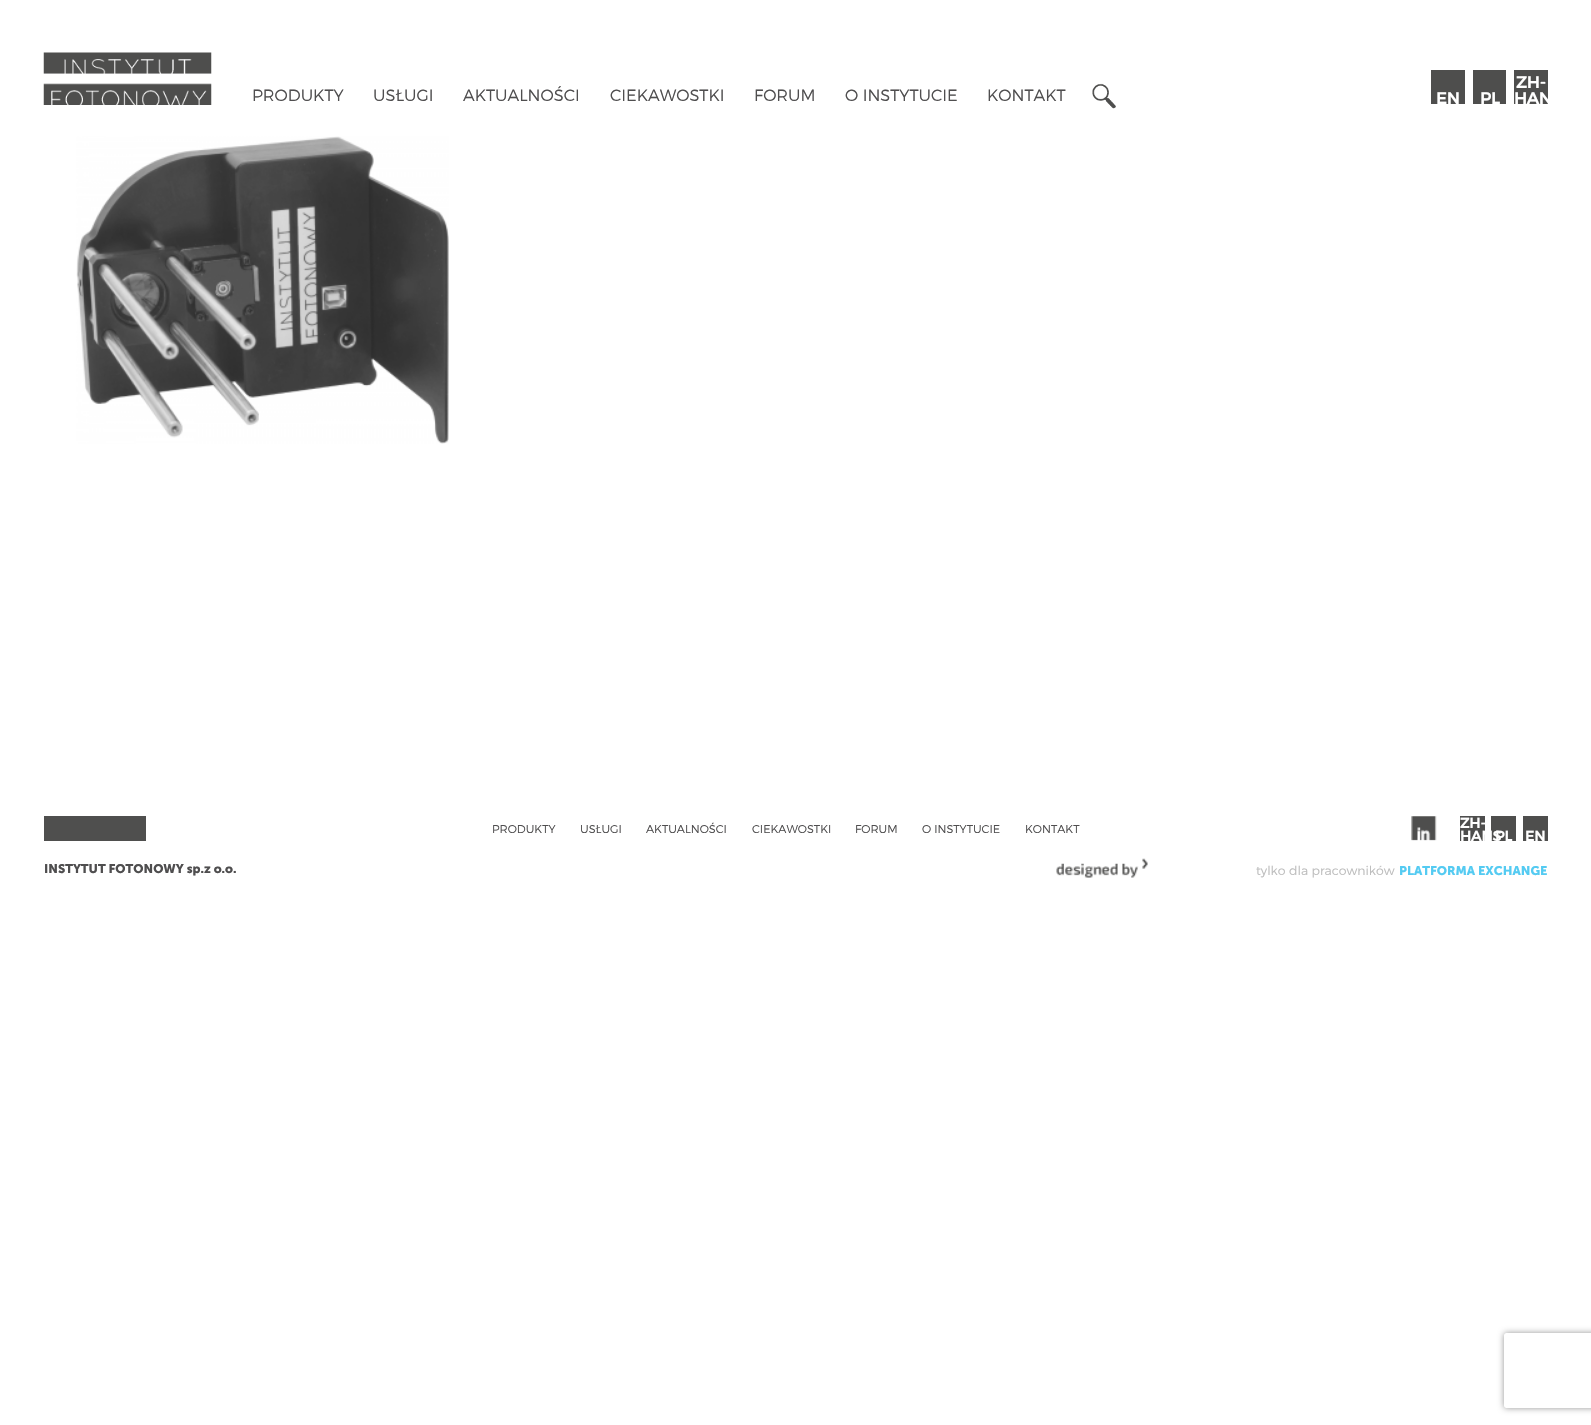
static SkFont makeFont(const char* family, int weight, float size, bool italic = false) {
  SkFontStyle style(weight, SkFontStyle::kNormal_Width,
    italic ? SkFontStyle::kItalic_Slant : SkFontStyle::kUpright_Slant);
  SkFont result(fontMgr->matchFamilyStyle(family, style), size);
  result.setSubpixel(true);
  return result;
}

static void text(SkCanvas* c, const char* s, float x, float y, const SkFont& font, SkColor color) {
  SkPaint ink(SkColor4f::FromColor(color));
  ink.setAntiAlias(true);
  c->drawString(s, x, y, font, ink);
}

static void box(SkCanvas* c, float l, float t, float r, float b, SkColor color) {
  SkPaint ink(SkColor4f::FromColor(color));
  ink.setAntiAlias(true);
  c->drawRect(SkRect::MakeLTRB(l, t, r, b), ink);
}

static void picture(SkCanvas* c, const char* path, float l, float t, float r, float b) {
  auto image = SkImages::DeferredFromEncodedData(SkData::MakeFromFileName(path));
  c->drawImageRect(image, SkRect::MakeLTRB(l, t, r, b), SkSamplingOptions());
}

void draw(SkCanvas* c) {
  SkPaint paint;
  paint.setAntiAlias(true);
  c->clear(0xffffffff);
  picture(c, "img_01.png", 43, 52, 212, 105);
  SkFont face1 = makeFont("Montserrat", 300, 16.25f);
  text(c, "PRODUKTY", 252, 101, face1, 0xff4f4e4f);
  text(c, "USŁUGI", 373, 101, face1, 0xff4f4e4f);
  text(c, "AKTUALNOŚCI", 463, 101, face1, 0xff4f4e4f);
  text(c, "CIEKAWOSTKI", 610, 101, face1, 0xff4f4e4f);
  text(c, "FORUM", 754, 101, face1, 0xff4f4e4f);
  text(c, "O INSTYTUCIE", 845, 101, face1, 0xff4f4e4f);
  text(c, "KONTAKT", 987, 101, face1, 0xff4f4e4f);
  picture(c, "img_02.png", 1092, 83, 1116, 109);
  box(c, 1431, 70, 1465, 104, 0xff4e4e4d);
  SkFont face2 = makeFont("Montserrat", 700, 16.25f);
  text(c, "EN", 1436, 104, face2, 0xffffffff);
  box(c, 1473, 70, 1506, 104, 0xff4e4e4d);
  text(c, "PL", 1480, 104, face2, 0xffffffff);
  box(c, 1514, 70, 1548, 104, 0xff4e4e4d);
  text(c, "ZH-", 1516, 88, face2, 0xffffffff);
  text(c, "HAN", 1514, 104, face2, 0xffffffff);
  picture(c, "img_03.png", 76, 136, 449, 444);
  SkFont face3 = makeFont("Montserrat", 300, 11.25f);
  text(c, "PRODUKTY", 492, 833, face3, 0xff4f4e4f);
  text(c, "USŁUGI", 580, 833, face3, 0xff4f4e4f);
  text(c, "AKTUALNOŚCI", 646, 833, face3, 0xff4f4e4f);
  text(c, "CIEKAWOSTKI", 752, 833, face3, 0xff4f4e4f);
  text(c, "FORUM", 855, 833, face3, 0xff4f4e4f);
  text(c, "O INSTYTUCIE", 922, 833, face3, 0xff4f4e4f);
  text(c, "KONTAKT", 1025, 833, face3, 0xff4f4e4f);
  picture(c, "img_04.png", 1411, 816, 1437, 841);
  box(c, 1460, 816, 1485, 841, 0xff4e4e4d);
  SkFont face4 = makeFont("Montserrat", 700, 14);
  text(c, "ZH-", 1460, 828, face4, 0xffffffff);
  box(c, 1491, 816, 1516, 841, 0xff4e4e4d);
  text(c, "PL", 1495, 841, face4, 0xffffffff);
  text(c, "HANS", 1460, 841, face4, 0xffffffff);
  box(c, 1523, 816, 1548, 841, 0xff4e4e4d);
  text(c, "EN", 1525, 841, face4, 0xffffffff);
  picture(c, "img_05.png", 1056, 858, 1148, 878);
  SkFont face5 = makeFont("Montserrat", 300, 12.5f);
  text(c, "tylko dla pracowników", 1256, 875, face5, 0xffbdbdbd);
  SkFont face6 = makeFont("Museo Sans", 700, 12.5f);
  text(c, "PLATFORMA EXCHANGE", 1399, 875, face6, 0xff54cbf2);
  box(c, 44, 816, 146, 841, 0xff4f4f4e);
  text(c, "INSTYTUT FOTONOWY sp.z o.o.", 44, 873, face6, 0xff4f4e4f);
  c->save();
  c->clipPath(SkPathBuilder(SkPathFillType::kEvenOdd).moveTo(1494, 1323).lineTo(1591, 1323).lineTo(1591, 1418).lineTo(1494, 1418).close().moveTo(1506.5f, 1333).lineTo(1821.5f, 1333).cubicTo(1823, 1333, 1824, 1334, 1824, 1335.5f).lineTo(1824, 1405.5f).cubicTo(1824, 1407, 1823, 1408, 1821.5f, 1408).lineTo(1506.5f, 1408).cubicTo(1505, 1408, 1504, 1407, 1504, 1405.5f).lineTo(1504, 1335.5f).cubicTo(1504, 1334, 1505, 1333, 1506.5f, 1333).close().detach(), true);
  paint.setColor(0xff949494);
  paint.setMaskFilter(SkMaskFilter::MakeBlur(kNormal_SkBlurStyle, 3));
  c->drawRoundRect(SkRect::MakeLTRB(1504, 1333, 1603, 1408), 2.5f, 2.5f, paint);
  paint.setMaskFilter(nullptr);
  c->restore();
}
